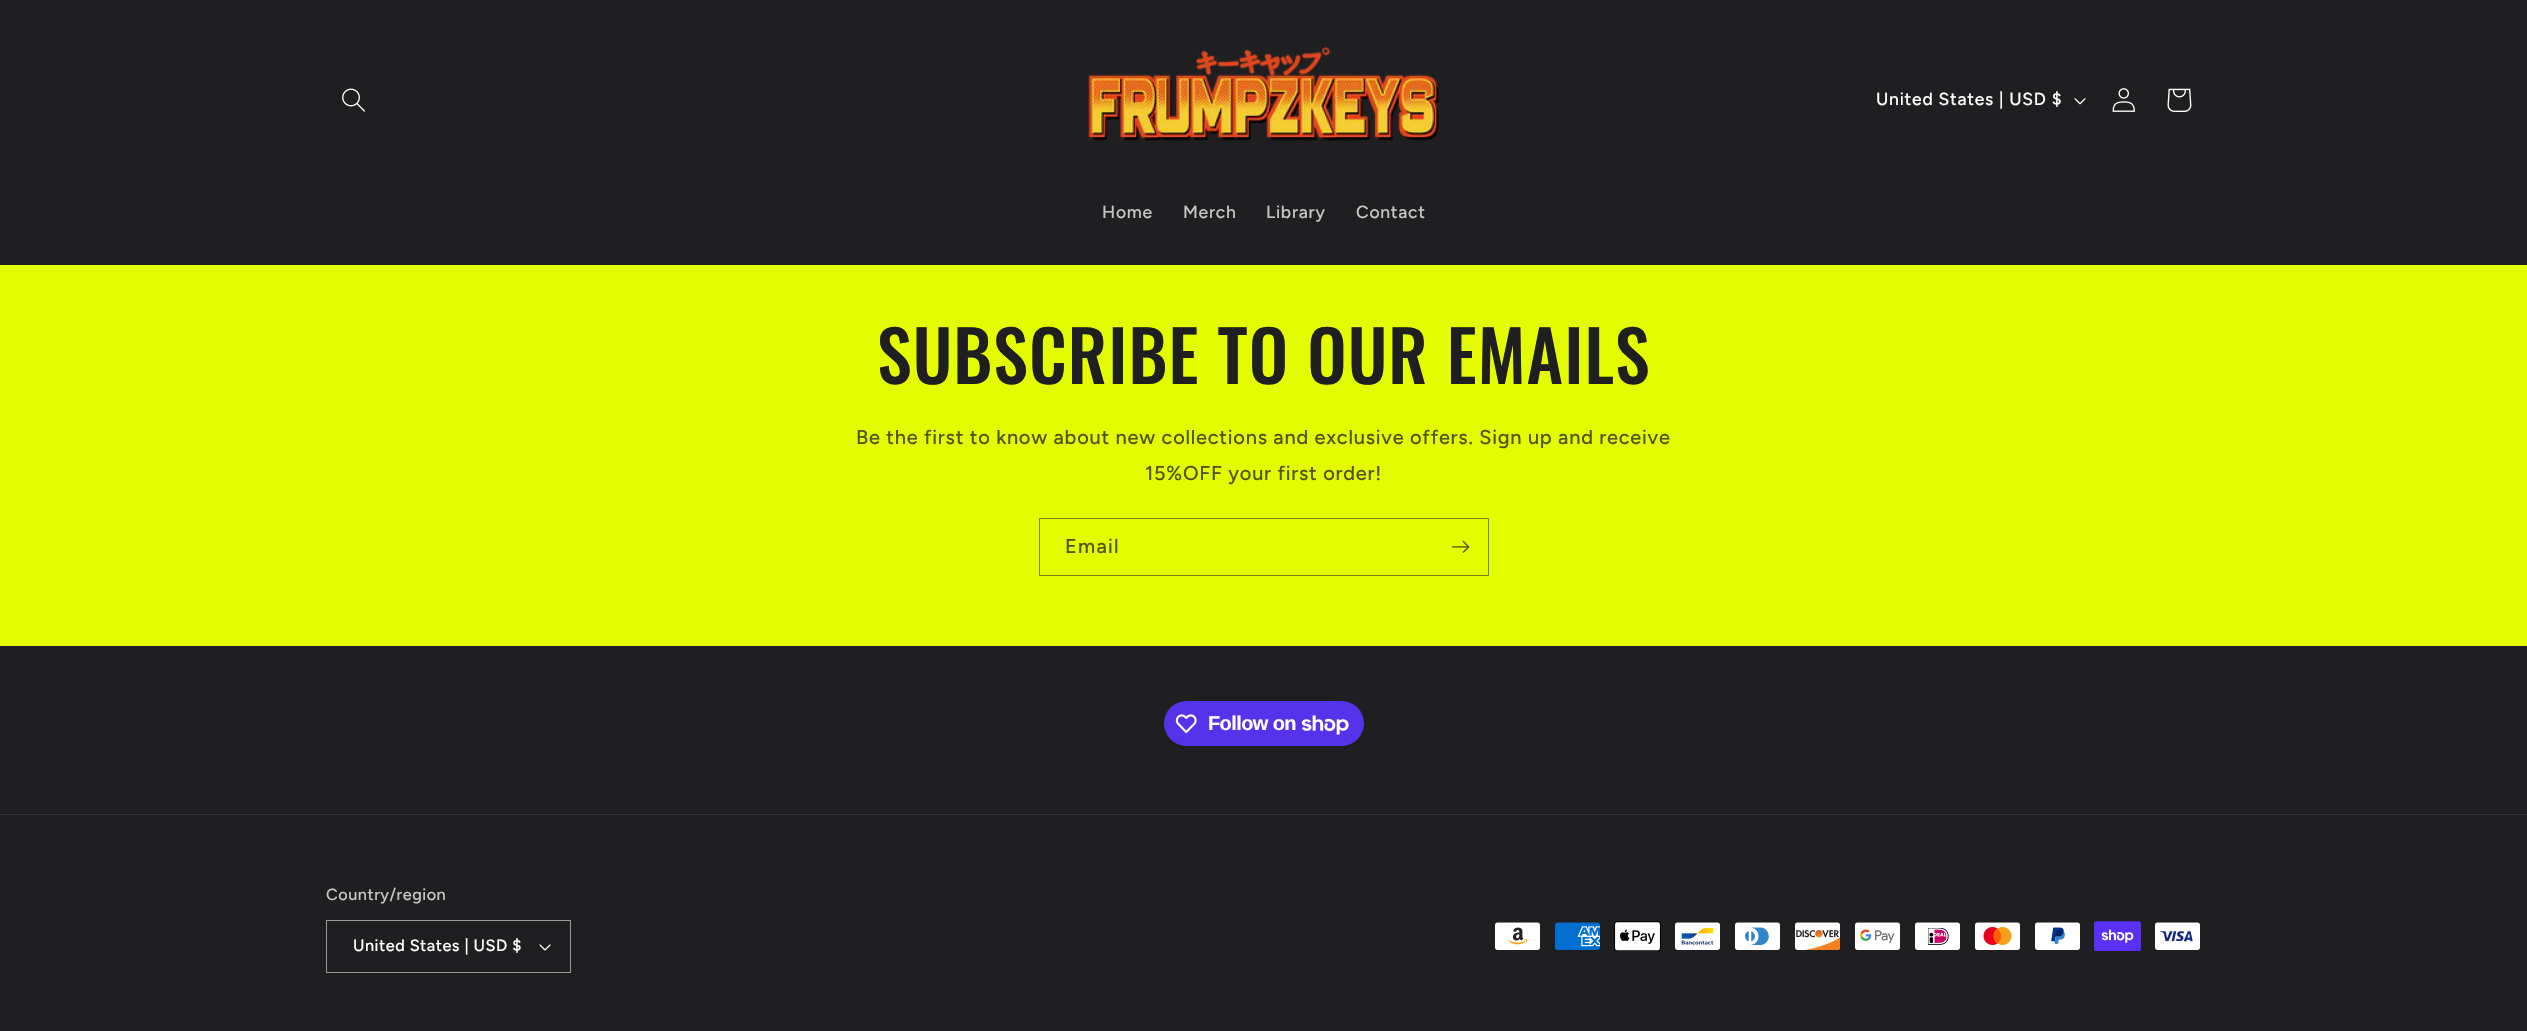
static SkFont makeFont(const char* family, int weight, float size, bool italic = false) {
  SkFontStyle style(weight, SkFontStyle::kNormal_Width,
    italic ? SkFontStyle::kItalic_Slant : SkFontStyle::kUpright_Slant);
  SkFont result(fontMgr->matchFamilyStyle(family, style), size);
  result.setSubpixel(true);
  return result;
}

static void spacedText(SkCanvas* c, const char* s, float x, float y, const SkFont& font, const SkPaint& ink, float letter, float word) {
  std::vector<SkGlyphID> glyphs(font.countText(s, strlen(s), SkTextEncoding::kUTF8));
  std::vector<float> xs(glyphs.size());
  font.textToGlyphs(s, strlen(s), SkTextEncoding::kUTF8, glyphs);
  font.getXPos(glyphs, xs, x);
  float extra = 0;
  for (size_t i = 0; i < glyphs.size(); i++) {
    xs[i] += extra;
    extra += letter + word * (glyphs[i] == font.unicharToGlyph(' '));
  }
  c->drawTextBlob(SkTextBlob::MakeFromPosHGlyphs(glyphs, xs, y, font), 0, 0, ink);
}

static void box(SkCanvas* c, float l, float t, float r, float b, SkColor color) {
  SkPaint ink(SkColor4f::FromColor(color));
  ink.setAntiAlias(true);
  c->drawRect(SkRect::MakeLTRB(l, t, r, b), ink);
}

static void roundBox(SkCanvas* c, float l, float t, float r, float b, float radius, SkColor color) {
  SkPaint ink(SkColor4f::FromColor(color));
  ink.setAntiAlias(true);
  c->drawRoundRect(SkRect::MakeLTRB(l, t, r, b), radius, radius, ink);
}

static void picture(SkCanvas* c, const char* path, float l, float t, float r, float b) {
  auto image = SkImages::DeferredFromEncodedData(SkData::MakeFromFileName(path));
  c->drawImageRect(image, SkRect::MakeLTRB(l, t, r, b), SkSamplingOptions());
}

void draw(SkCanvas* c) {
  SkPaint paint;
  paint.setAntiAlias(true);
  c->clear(0xff1f1f21);
  picture(c, "img_01.png", 342, 88, 365, 112);
  picture(c, "img_02.png", 1088, 46, 1439, 141);
  SkFont face1 = makeFont("Figtree", 500, 17.5f);
  paint.setColor(0xffffffff);
  spacedText(c, "United States | USD $", 1876, 105, face1, paint, 0.75f, 0);
  picture(c, "img_03.png", 2074, 98, 2086, 105);
  picture(c, "img_04.png", 2112, 88, 2135, 112);
  picture(c, "img_05.png", 2167, 88, 2192, 112);
  paint.setColor(0xffc7c7c8);
  spacedText(c, "Home", 1102, 218, face1, paint, 0.75f, 0);
  spacedText(c, "Merch", 1183, 218, face1, paint, 0.75f, 0);
  spacedText(c, "Library", 1266, 218, face1, paint, 0.75f, 0);
  spacedText(c, "Contact", 1356, 218, face1, paint, 0.75f, 0);
  box(c, 0, 265, 2527, 646, 0xffe3fc02);
  SkFont face2 = makeFont("Oswald", 500, 70);
  paint.setColor(0xff1f1f21);
  spacedText(c, "SUBSCRIBE TO OUR EMAILS", 877, 384, face2, paint, 1.05f, 0);
  SkFont face3 = makeFont("Figtree", 500, 20);
  paint.setColor(0xff505619);
  spacedText(c, "Be the first to know about new collections and exclusive offers. Sign up and receive", 856, 444, face3, paint, 0.75f, 0);
  spacedText(c, "15%OFF your first order!", 1145, 480, face3, paint, 0.75f, 0);
  paint.setStyle(SkPaint::kStroke_Style);
  paint.setStrokeWidth(1);
  paint.setColor(0xff778213);
  c->drawRect(SkRect::MakeLTRB(1039.5f, 518.5f, 1488.5f, 575.5f), paint);
  paint.setStyle(SkPaint::kFill_Style);
  paint.setColor(0xff505619);
  spacedText(c, "Email", 1065, 553, face3, paint, 1.25f, 0);
  picture(c, "img_06.png", 1452, 540, 1470, 553);
  roundBox(c, 1164, 701, 1364, 746, 22.5f, 0xff5433eb);
  picture(c, "img_07.png", 1175, 714, 1197, 734);
  SkFont face4 = makeFont("Liberation Sans", 700, 20);
  paint.setColor(0xffffffff);
  spacedText(c, "Follow on", 1208, 730, face4, paint, -0.6f, 0);
  picture(c, "img_08.png", 1301, 715, 1349, 735);
  box(c, 0, 814, 2527, 815, 0xff313133);
  SkFont face5 = makeFont("Figtree", 500, 16.25f);
  paint.setColor(0xffc7c7c8);
  spacedText(c, "Country/region", 326, 900, face5, paint, 0.5f, 0);
  picture(c, "img_09.png", 539, 944, 551, 951);
  paint.setStyle(SkPaint::kStroke_Style);
  paint.setColor(0xff9a9a9b);
  c->drawRect(SkRect::MakeLTRB(326.5f, 920.5f, 570.5f, 972.5f), paint);
  paint.setStyle(SkPaint::kFill_Style);
  paint.setColor(0xffffffff);
  spacedText(c, "United States | USD $", 353, 951, face5, paint, 0.5f, 0);
  picture(c, "img_10.png", 1495, 922, 1540, 950);
  picture(c, "img_11.png", 1555, 922, 1600, 950);
  picture(c, "img_12.png", 1614, 921, 1661, 951);
  picture(c, "img_13.png", 1675, 922, 1720, 950);
  picture(c, "img_14.png", 1735, 922, 1780, 950);
  picture(c, "img_15.png", 1795, 922, 1840, 950);
  picture(c, "img_16.png", 1855, 922, 1900, 950);
  picture(c, "img_17.png", 1915, 922, 1960, 950);
  picture(c, "img_18.png", 1975, 922, 2020, 950);
  picture(c, "img_19.png", 2035, 922, 2080, 950);
  picture(c, "img_20.png", 2094, 921, 2141, 951);
  picture(c, "img_21.png", 2155, 922, 2200, 950);
}
